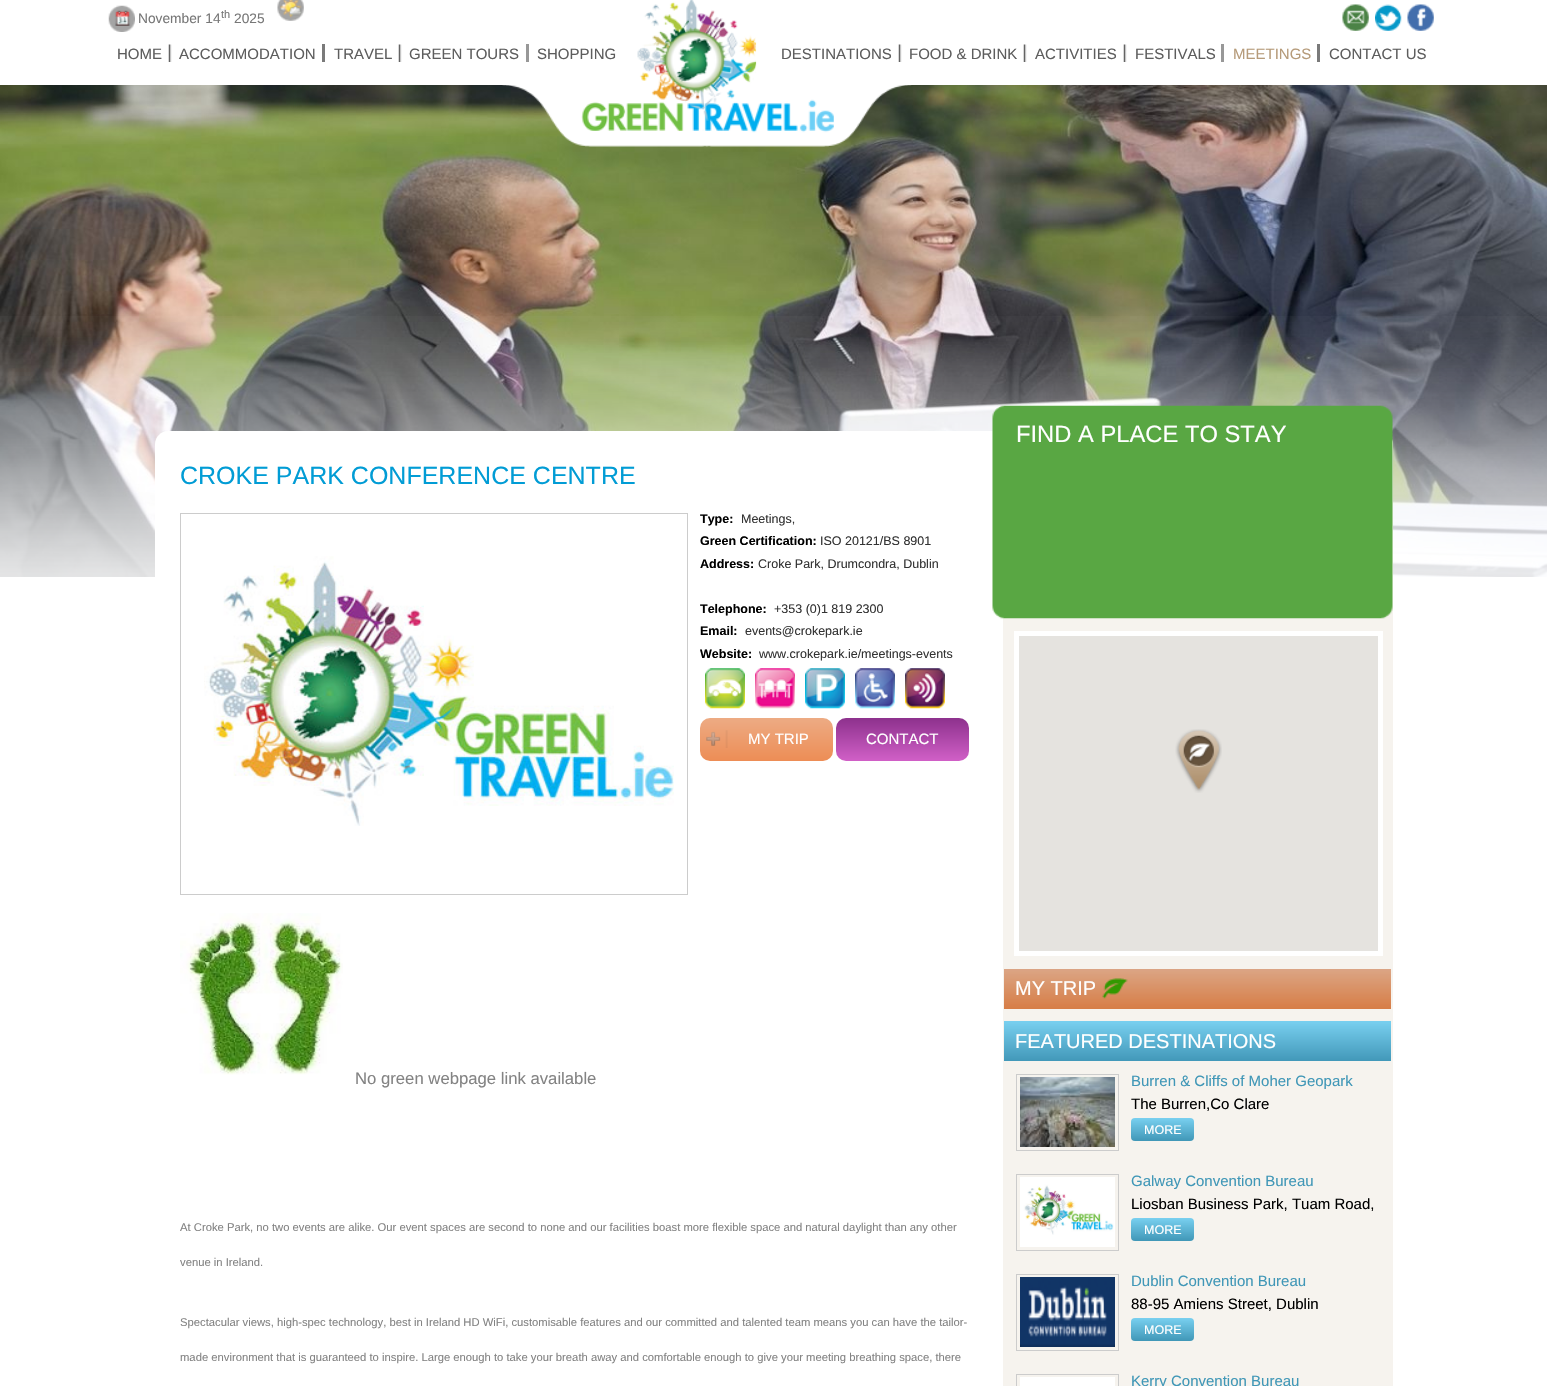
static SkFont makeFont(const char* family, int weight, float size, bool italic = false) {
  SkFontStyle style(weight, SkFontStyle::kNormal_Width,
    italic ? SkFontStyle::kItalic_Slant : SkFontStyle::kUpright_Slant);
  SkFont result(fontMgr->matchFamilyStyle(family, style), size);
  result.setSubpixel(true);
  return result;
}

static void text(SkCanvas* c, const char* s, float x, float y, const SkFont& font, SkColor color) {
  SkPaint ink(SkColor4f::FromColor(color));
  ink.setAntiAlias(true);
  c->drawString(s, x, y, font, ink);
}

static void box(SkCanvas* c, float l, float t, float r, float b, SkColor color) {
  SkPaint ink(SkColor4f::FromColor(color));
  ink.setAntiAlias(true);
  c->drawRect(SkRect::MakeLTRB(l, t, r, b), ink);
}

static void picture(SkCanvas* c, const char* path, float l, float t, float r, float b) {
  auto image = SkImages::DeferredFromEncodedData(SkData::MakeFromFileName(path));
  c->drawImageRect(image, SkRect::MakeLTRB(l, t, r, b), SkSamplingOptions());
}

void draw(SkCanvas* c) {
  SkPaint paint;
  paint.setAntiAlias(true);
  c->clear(0xffffffff);
  picture(c, "img_01.png", 108, 5, 135, 32);
  SkFont face1 = makeFont("Liberation Sans", 400, 13.75f);
  text(c, "November 14", 138, 23, face1, 0xff777777);
  SkFont face2 = makeFont("Liberation Sans", 400, 11);
  text(c, "th", 221, 18, face2, 0xff777777);
  text(c, "2025", 234, 23, face1, 0xff777777);
  picture(c, "img_02.png", 277, 0, 304, 21);
  picture(c, "img_03.png", 1342, 4, 1369, 31);
  picture(c, "img_04.png", 1375, 4, 1402, 31);
  picture(c, "img_05.png", 1407, 4, 1434, 31);
  picture(c, "img_06.png", 168, 44, 172, 62);
  SkFont face3 = makeFont("Arimo", 400, 15);
  text(c, "HOME", 117, 59, face3, 0xff5d5d5d);
  box(c, 322, 44, 325, 62, 0xff7a7a7a);
  text(c, "ACCOMMODATION", 179, 59, face3, 0xff5d5d5d);
  picture(c, "img_06.png", 398, 44, 402, 62);
  text(c, "TRAVEL", 334, 59, face3, 0xff5d5d5d);
  box(c, 526, 44, 529, 62, 0xff989898);
  text(c, "GREEN TOURS", 409, 59, face3, 0xff5d5d5d);
  text(c, "SHOPPING", 537, 59, face3, 0xff5d5d5d);
  picture(c, "img_25.png", 0, 85, 1547, 577);
  picture(c, "img_09.png", 502, 85, 912, 147);
  picture(c, "img_07.png", 637, 0, 757, 121);
  picture(c, "img_08.png", 665, 29, 723, 90);
  picture(c, "img_06.png", 898, 44, 902, 62);
  text(c, "DESTINATIONS", 781, 59, face3, 0xff5d5d5d);
  picture(c, "img_06.png", 1023, 44, 1027, 62);
  text(c, "FOOD & DRINK", 909, 59, face3, 0xff5d5d5d);
  picture(c, "img_06.png", 1123, 44, 1127, 62);
  text(c, "ACTIVITIES", 1035, 59, face3, 0xff5d5d5d);
  box(c, 1221, 44, 1224, 62, 0xff989898);
  text(c, "FESTIVALS", 1135, 59, face3, 0xff5d5d5d);
  box(c, 1317, 44, 1320, 62, 0xff7a7a7a);
  text(c, "MEETINGS", 1233, 59, face3, 0xffb69b7a);
  text(c, "CONTACT US", 1329, 59, face3, 0xff5d5d5d);
  picture(c, "img_10.png", 0, 316, 1547, 577);
  paint.setColor(0xffffffff);
  c->drawPath(SkPathBuilder().moveTo(168, 431).lineTo(1380, 431).cubicTo(1387, 431, 1393, 437, 1393, 444).lineTo(1393, 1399).lineTo(155, 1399).lineTo(155, 444).cubicTo(155, 437, 161, 431, 168, 431).close().detach(), paint);
  box(c, 1003, 443, 1393, 1386, 0xfff6f3ee);
  SkFont face4 = makeFont("Liberation Sans", 400, 25);
  text(c, "CROKE PARK CONFERENCE CENTRE", 180, 484, face4, 0xff019cd5);
  paint.setStyle(SkPaint::kStroke_Style);
  paint.setStrokeWidth(1);
  paint.setColor(0xffcccccc);
  c->drawRect(SkRect::MakeLTRB(180.5f, 513.5f, 687.5f, 894.5f), paint);
  picture(c, "img_11.png", 204, 556, 674, 826);
  SkFont face5 = makeFont("Liberation Sans", 700, 12.5f);
  text(c, "Type:", 700, 523, face5, 0xff000000);
  SkFont face6 = makeFont("Liberation Sans", 400, 12.5f);
  text(c, "Meetings,", 741, 523, face6, 0xff333333);
  text(c, "Green Certification:", 700, 545, face5, 0xff000000);
  text(c, "ISO 20121/BS 8901", 820, 545, face6, 0xff333333);
  text(c, "Address:", 700, 568, face5, 0xff000000);
  text(c, "Croke Park, Drumcondra, Dublin", 758, 568, face6, 0xff333333);
  text(c, "Telephone:", 700, 613, face5, 0xff000000);
  text(c, "+353 (0)1 819 2300", 774, 613, face6, 0xff333333);
  text(c, "Email:", 700, 635, face5, 0xff000000);
  text(c, "events@crokepark.ie", 745, 635, face6, 0xff333333);
  text(c, "Website:", 700, 658, face5, 0xff000000);
  text(c, "www.crokepark.ie/meetings-events", 759, 658, face6, 0xff333333);
  picture(c, "img_12.png", 705, 668, 745, 709);
  picture(c, "img_13.png", 755, 668, 795, 709);
  picture(c, "img_14.png", 805, 668, 845, 709);
  picture(c, "img_15.png", 855, 668, 895, 709);
  picture(c, "img_16.png", 905, 668, 945, 709);
  paint.setStyle(SkPaint::kFill_Style);
  {
    const SkColor colors[] = {0xffedab84, 0xffed8d55};
    const float stops[] = {0, 1};
    const SkPoint ends[] = {{700, 718}, {700, 761}};
    paint.setShader(SkGradientShader::MakeLinear(ends, colors, stops, 2, SkTileMode::kClamp));
    paint.setAlpha(255);
  }
  c->drawRoundRect(SkRect::MakeLTRB(700, 718, 833, 761), 10, 10, paint);
  picture(c, "img_17.png", 706, 730, 728, 748);
  SkFont face7 = makeFont("Liberation Sans", 400, 15);
  text(c, "MY TRIP", 748, 744, face7, 0xffffffff);
  {
    const SkColor colors[] = {0xff8d318d, 0xffd160c7};
    const float stops[] = {0, 1};
    const SkPoint ends[] = {{903, 718}, {903, 761}};
    paint.setShader(SkGradientShader::MakeLinear(ends, colors, stops, 2, SkTileMode::kClamp));
    paint.setAlpha(255);
  }
  c->drawRoundRect(SkRect::MakeLTRB(836, 718, 969, 761), 10, 10, paint);
  text(c, "CONTACT", 866, 744, face7, 0xffffffff);
  picture(c, "img_18.png", 180, 913, 343, 1075);
  SkFont face8 = makeFont("Liberation Sans", 400, 16.7f);
  text(c, "No green webpage link available", 355, 1084, face8, 0xff838383);
  SkFont face9 = makeFont("Liberation Sans", 400, 11.25f);
  text(c, "At Croke Park, no two events are alike. Our event spaces are second to none and our facilities boast more flexible space and natural daylight than any other", 180, 1231, face9, 0xff838383);
  text(c, "venue in Ireland.", 180, 1266, face9, 0xff838383);
  text(c, "Spectacular views, high-spec technology, best in Ireland HD WiFi, customisable features and our committed and talented team means you can have the tailor-", 180, 1326, face9, 0xff838383);
  text(c, "made environment that is guaranteed to inspire. Large enough to take your breath away and comfortable enough to give your meeting breathing space, there", 180, 1361, face9, 0xff838383);
  picture(c, "img_19.png", 992, 405, 1393, 619);
  SkFont face10 = makeFont("Arimo", 400, 23.75f);
  text(c, "FIND A PLACE TO STAY", 1016, 442, face10, 0xffffffff);
  paint.setStyle(SkPaint::kStroke_Style);
  paint.setStrokeWidth(5);
  paint.setShader(nullptr);
  paint.setColor(0xffffffff);
  c->drawRect(SkRect::MakeLTRB(1016.5f, 633.5f, 1380.5f, 953.5f), paint);
  box(c, 1019, 636, 1378, 951, 0xffe5e3df);
  picture(c, "img_20.png", 1175, 729, 1222, 793);
  paint.setStyle(SkPaint::kFill_Style);
  {
    const SkColor colors[] = {0xffdba585, 0xffd77d46};
    const float stops[] = {0, 1};
    const SkPoint ends[] = {{1004, 969}, {1004, 1009}};
    paint.setShader(SkGradientShader::MakeLinear(ends, colors, stops, 2, SkTileMode::kClamp));
    paint.setAlpha(255);
  }
  c->drawRect(SkRect::MakeLTRB(1004, 969, 1391, 1009), paint);
  SkFont face11 = makeFont("Liberation Sans", 400, 20);
  text(c, "MY TRIP", 1015, 995, face11, 0xffffffff);
  picture(c, "img_21.png", 1102, 978, 1128, 999);
  {
    const SkColor colors[] = {0xff79d0f0, 0xff4298b9};
    const float stops[] = {0, 1};
    const SkPoint ends[] = {{1004, 1021}, {1004, 1061}};
    paint.setShader(SkGradientShader::MakeLinear(ends, colors, stops, 2, SkTileMode::kClamp));
    paint.setAlpha(255);
  }
  c->drawRect(SkRect::MakeLTRB(1004, 1021, 1391, 1061), paint);
  text(c, "FEATURED DESTINATIONS", 1015, 1048, face11, 0xffffffff);
  paint.setStyle(SkPaint::kStroke_Style);
  paint.setStrokeWidth(1);
  paint.setShader(nullptr);
  paint.setColor(0xffcccccc);
  c->drawRect(SkRect::MakeLTRB(1016.5f, 1074.5f, 1118.5f, 1150.5f), paint);
  picture(c, "img_22.png", 1020, 1077, 1115, 1147);
  text(c, "Burren & Cliffs of Moher Geopark", 1131, 1086, face7, 0xff4097b7);
  text(c, "The Burren,Co Clare", 1131, 1109, face7, 0xff000000);
  paint.setStyle(SkPaint::kFill_Style);
  {
    const SkColor colors[] = {0xff79d0f0, 0xff4097b7};
    const float stops[] = {0, 1};
    const SkPoint ends[] = {{1131, 1118}, {1131, 1141}};
    paint.setShader(SkGradientShader::MakeLinear(ends, colors, stops, 2, SkTileMode::kClamp));
    paint.setAlpha(255);
  }
  c->drawRoundRect(SkRect::MakeLTRB(1131, 1118, 1194, 1141), 4, 4, paint);
  text(c, "MORE", 1144, 1134, face6, 0xffffffff);
  paint.setStyle(SkPaint::kStroke_Style);
  paint.setShader(nullptr);
  paint.setColor(0xffcccccc);
  c->drawRect(SkRect::MakeLTRB(1016.5f, 1174.5f, 1118.5f, 1250.5f), paint);
  picture(c, "img_23.png", 1020, 1177, 1115, 1247);
  text(c, "Galway Convention Bureau", 1131, 1186, face7, 0xff4097b7);
  text(c, "Liosban Business Park, Tuam Road,", 1131, 1209, face7, 0xff000000);
  paint.setStyle(SkPaint::kFill_Style);
  {
    const SkColor colors[] = {0xff79d0f0, 0xff4097b7};
    const float stops[] = {0, 1};
    const SkPoint ends[] = {{1131, 1218}, {1131, 1241}};
    paint.setShader(SkGradientShader::MakeLinear(ends, colors, stops, 2, SkTileMode::kClamp));
    paint.setAlpha(255);
  }
  c->drawRoundRect(SkRect::MakeLTRB(1131, 1218, 1194, 1241), 4, 4, paint);
  text(c, "MORE", 1144, 1234, face6, 0xffffffff);
  paint.setStyle(SkPaint::kStroke_Style);
  paint.setShader(nullptr);
  paint.setColor(0xffcccccc);
  c->drawRect(SkRect::MakeLTRB(1016.5f, 1274.5f, 1118.5f, 1350.5f), paint);
  picture(c, "img_24.png", 1020, 1277, 1115, 1347);
  text(c, "Dublin Convention Bureau", 1131, 1286, face7, 0xff4097b7);
  text(c, "88-95 Amiens Street, Dublin", 1131, 1309, face7, 0xff000000);
  paint.setStyle(SkPaint::kFill_Style);
  {
    const SkColor colors[] = {0xff79d0f0, 0xff4097b7};
    const float stops[] = {0, 1};
    const SkPoint ends[] = {{1131, 1318}, {1131, 1341}};
    paint.setShader(SkGradientShader::MakeLinear(ends, colors, stops, 2, SkTileMode::kClamp));
    paint.setAlpha(255);
  }
  c->drawRoundRect(SkRect::MakeLTRB(1131, 1318, 1194, 1341), 4, 4, paint);
  text(c, "MORE", 1144, 1334, face6, 0xffffffff);
  paint.setStyle(SkPaint::kStroke_Style);
  paint.setShader(nullptr);
  paint.setColor(0xffcccccc);
  c->drawRect(SkRect::MakeLTRB(1016.5f, 1374.5f, 1118.5f, 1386.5f), paint);
  box(c, 1020, 1377, 1115, 1386, 0xffffffff);
  text(c, "Kerry Convention Bureau", 1131, 1386, face7, 0xff4097b7);
}
